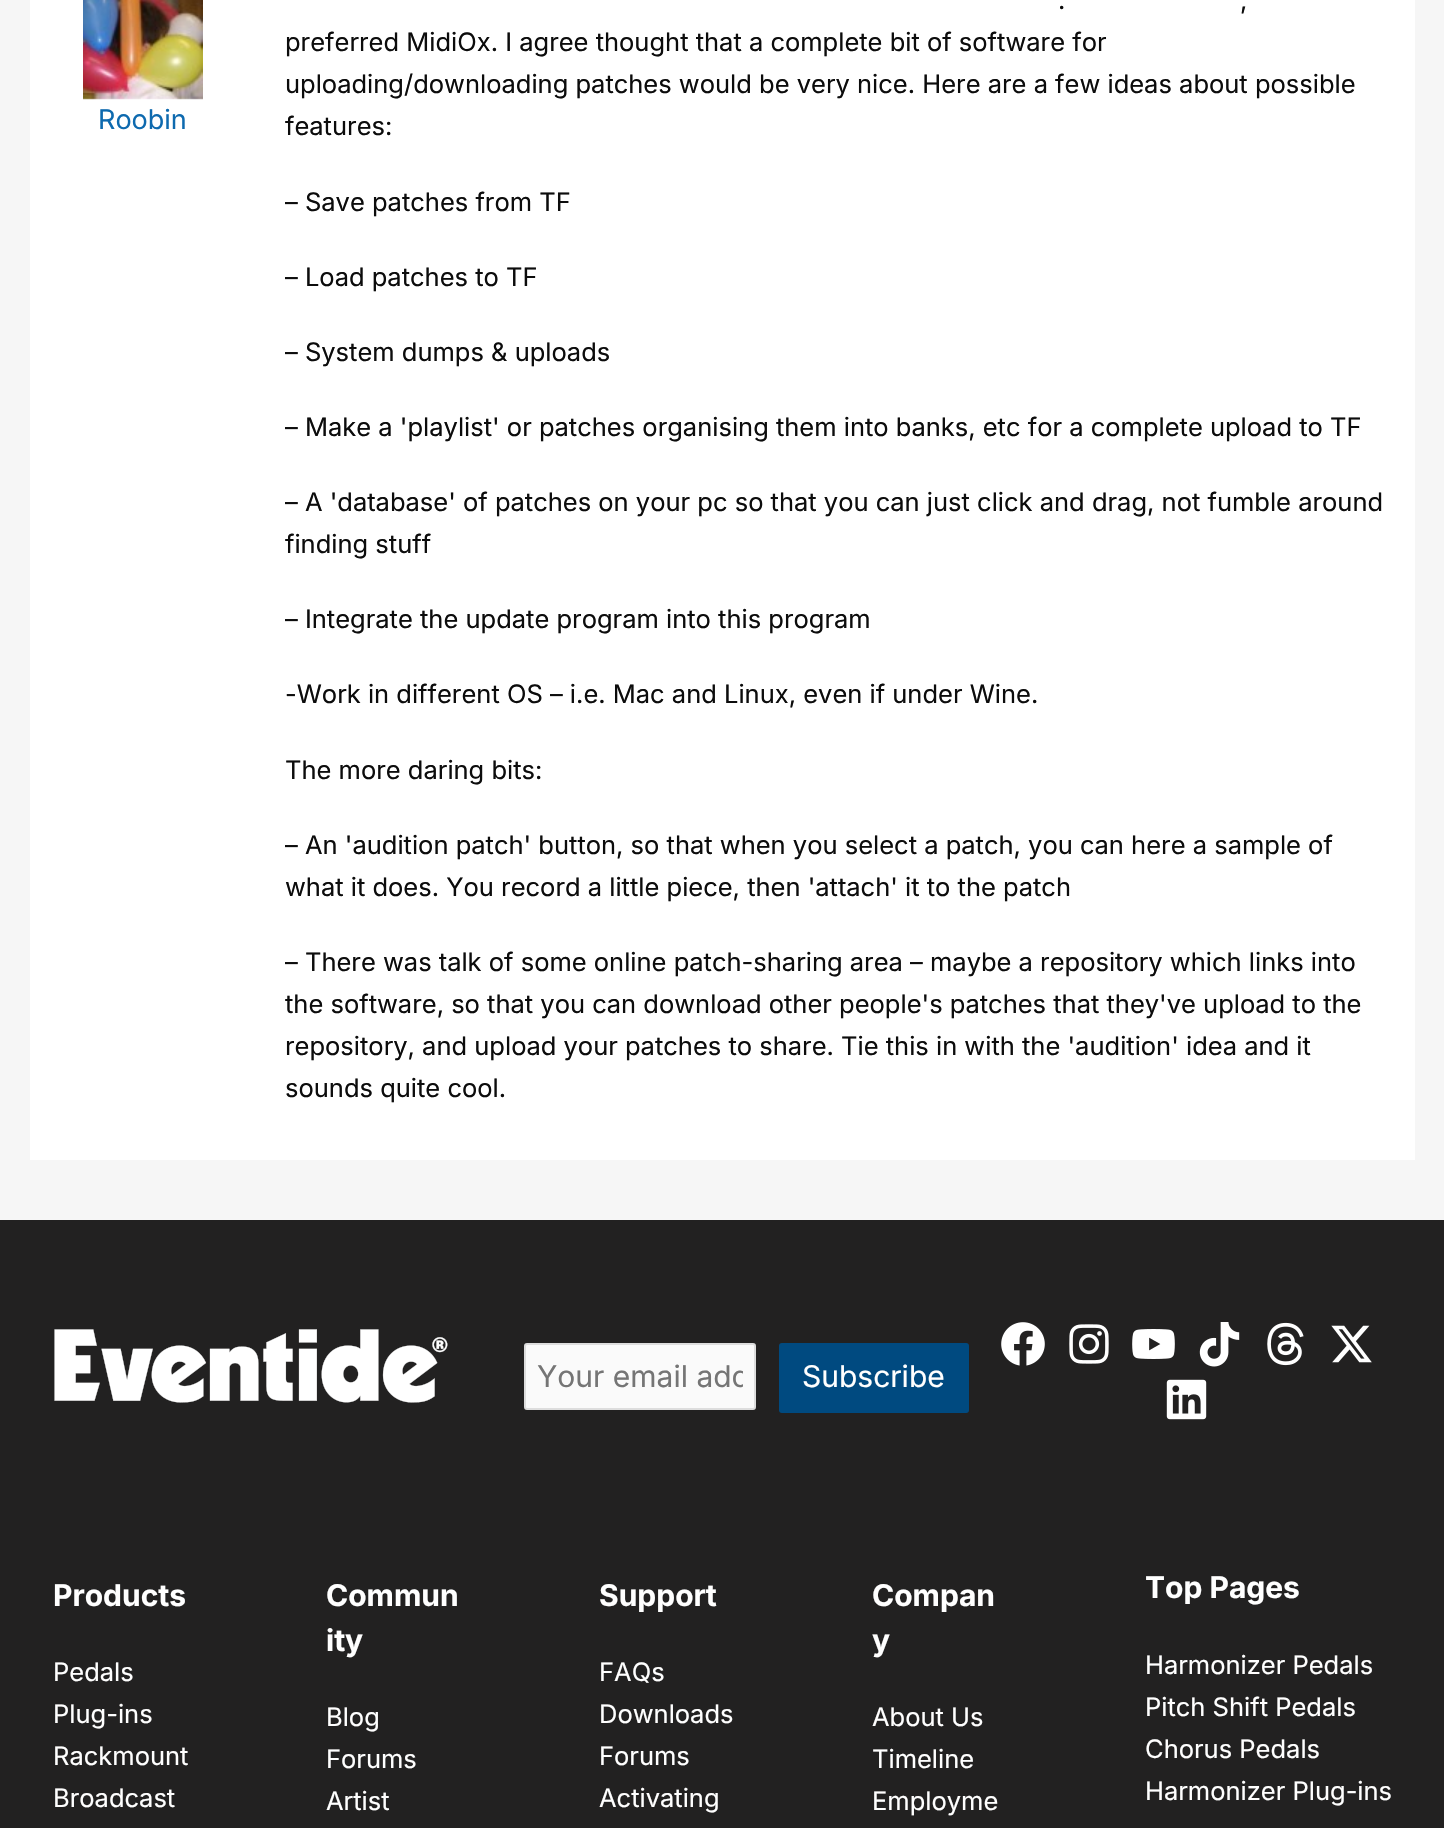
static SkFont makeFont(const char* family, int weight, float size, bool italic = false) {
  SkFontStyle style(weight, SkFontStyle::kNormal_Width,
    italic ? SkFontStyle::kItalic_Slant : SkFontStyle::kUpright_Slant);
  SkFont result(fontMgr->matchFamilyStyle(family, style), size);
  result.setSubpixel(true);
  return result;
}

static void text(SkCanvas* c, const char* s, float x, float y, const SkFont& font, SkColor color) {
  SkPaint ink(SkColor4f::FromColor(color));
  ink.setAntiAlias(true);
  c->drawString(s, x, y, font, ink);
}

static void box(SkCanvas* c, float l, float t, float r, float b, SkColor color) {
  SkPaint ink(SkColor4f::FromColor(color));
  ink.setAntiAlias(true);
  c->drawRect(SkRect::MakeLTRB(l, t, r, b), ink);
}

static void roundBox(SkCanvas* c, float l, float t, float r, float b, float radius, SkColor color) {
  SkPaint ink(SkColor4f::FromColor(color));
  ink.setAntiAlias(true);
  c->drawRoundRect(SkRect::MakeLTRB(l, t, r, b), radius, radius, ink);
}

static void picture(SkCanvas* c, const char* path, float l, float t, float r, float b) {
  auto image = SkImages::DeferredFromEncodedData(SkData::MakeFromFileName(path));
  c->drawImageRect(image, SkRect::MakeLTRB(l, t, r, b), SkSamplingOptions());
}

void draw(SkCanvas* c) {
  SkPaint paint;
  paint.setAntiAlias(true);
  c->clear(0xfff6f6f6);
  box(c, 30, 0, 1415, 1160, 0xffffffff);
  picture(c, "img_01.png", 83, 0, 203, 100);
  SkFont face1 = makeFont("Inter", 400, 27);
  text(c, "Roobin", 98, 129, face1, 0xff0e6aaf);
  SkFont face2 = makeFont("Inter", 400, 25.5f);
  text(c, ".", 1058, 9, face2, 0xff0c0c0c);
  text(c, ",", 1240, 9, face2, 0xff0c0c0c);
  text(c, "preferred MidiOx. I agree thought that a complete bit of software for", 285, 51, face2, 0xff0c0c0c);
  text(c, "uploading/downloading patches would be very nice. Here are a few ideas about possible", 285, 93, face2, 0xff0c0c0c);
  text(c, "features:", 285, 135, face2, 0xff0c0c0c);
  text(c, "– Save patches from TF", 285, 211, face2, 0xff0c0c0c);
  text(c, "– Load patches to TF", 285, 286, face2, 0xff0c0c0c);
  text(c, "– System dumps & uploads", 285, 361, face2, 0xff0c0c0c);
  text(c, "– Make a 'playlist' or patches organising them into banks, etc for a complete upload to TF", 285, 436, face2, 0xff0c0c0c);
  text(c, "– A 'database' of patches on your pc so that you can just click and drag, not fumble around", 285, 511, face2, 0xff0c0c0c);
  text(c, "finding stuff", 285, 553, face2, 0xff0c0c0c);
  text(c, "– Integrate the update program into this program", 285, 628, face2, 0xff0c0c0c);
  text(c, "-Work in different OS – i.e. Mac and Linux, even if under Wine.", 285, 703, face2, 0xff0c0c0c);
  text(c, "The more daring bits:", 285, 779, face2, 0xff0c0c0c);
  text(c, "– An 'audition patch' button, so that when you select a patch, you can here a sample of", 285, 854, face2, 0xff0c0c0c);
  text(c, "what it does. You record a little piece, then 'attach' it to the patch", 285, 896, face2, 0xff0c0c0c);
  text(c, "– There was talk of some online patch-sharing area – maybe a repository which links into", 285, 971, face2, 0xff0c0c0c);
  text(c, "the software, so that you can download other people's patches that they've upload to the", 285, 1013, face2, 0xff0c0c0c);
  text(c, "repository, and upload your patches to share. Tie this in with the 'audition' idea and it", 285, 1055, face2, 0xff0c0c0c);
  text(c, "sounds quite cool.", 285, 1097, face2, 0xff0c0c0c);
  box(c, 0, 1220, 1444, 1828, 0xff222121);
  picture(c, "img_02.png", 54, 1329, 448, 1403);
  paint.setColor(0xfffafafa);
  c->drawRoundRect(SkRect::MakeLTRB(525, 1344, 755, 1409), 2, 2, paint);
  paint.setStyle(SkPaint::kStroke_Style);
  paint.setStrokeWidth(2);
  paint.setColor(0xffdddddd);
  c->drawRoundRect(SkRect::MakeLTRB(525, 1344, 755, 1409), 2, 2, paint);
  c->save();
  c->clipRect(SkRect::MakeLTRB(537, 1358, 743, 1394));
  SkFont face3 = makeFont("Inter", 400, 30);
  text(c, "Your email add", 537, 1387, face3, 0xff757575);
  c->restore();
  roundBox(c, 779, 1343, 969, 1413, 3, 0xff004a80);
  text(c, "Subscribe", 802, 1387, face3, 0xffffffff);
  picture(c, "img_03.png", 1001, 1322, 1045, 1366);
  picture(c, "img_04.png", 1069, 1324, 1109, 1364);
  picture(c, "img_05.png", 1132, 1329, 1175, 1359);
  picture(c, "img_06.png", 1199, 1322, 1240, 1367);
  picture(c, "img_07.png", 1267, 1322, 1304, 1366);
  picture(c, "img_08.png", 1331, 1325, 1372, 1363);
  picture(c, "img_09.png", 1166, 1379, 1207, 1420);
  SkFont face4 = makeFont("Inter", 700, 30);
  text(c, "Products", 53, 1606, face4, 0xffffffff);
  text(c, "Pedals", 53, 1681, face2, 0xffffffff);
  text(c, "Plug-ins", 53, 1723, face2, 0xffffffff);
  text(c, "Rackmount", 53, 1765, face2, 0xffffffff);
  text(c, "Broadcast", 53, 1807, face2, 0xffffffff);
  text(c, "Commun", 326, 1606, face4, 0xffffffff);
  text(c, "ity", 326, 1651, face4, 0xffffffff);
  text(c, "Blog", 326, 1726, face2, 0xffffffff);
  text(c, "Forums", 326, 1768, face2, 0xffffffff);
  text(c, "Artist", 326, 1810, face2, 0xffffffff);
  text(c, "Support", 599, 1606, face4, 0xffffffff);
  text(c, "FAQs", 599, 1681, face2, 0xffffffff);
  text(c, "Downloads", 599, 1723, face2, 0xffffffff);
  text(c, "Forums", 599, 1765, face2, 0xffffffff);
  text(c, "Activating", 599, 1807, face2, 0xffffffff);
  text(c, "Compan", 872, 1606, face4, 0xffffffff);
  text(c, "y", 872, 1651, face4, 0xffffffff);
  text(c, "About Us", 872, 1726, face2, 0xffffffff);
  text(c, "Timeline", 872, 1768, face2, 0xffffffff);
  text(c, "Employme", 872, 1810, face2, 0xffffffff);
  text(c, "Top Pages", 1145, 1598, face4, 0xffffffff);
  text(c, "Harmonizer Pedals", 1145, 1674, face2, 0xffffffff);
  text(c, "Pitch Shift Pedals", 1145, 1716, face2, 0xffffffff);
  text(c, "Chorus Pedals", 1145, 1758, face2, 0xffffffff);
  text(c, "Harmonizer Plug-ins", 1145, 1800, face2, 0xffffffff);
}
